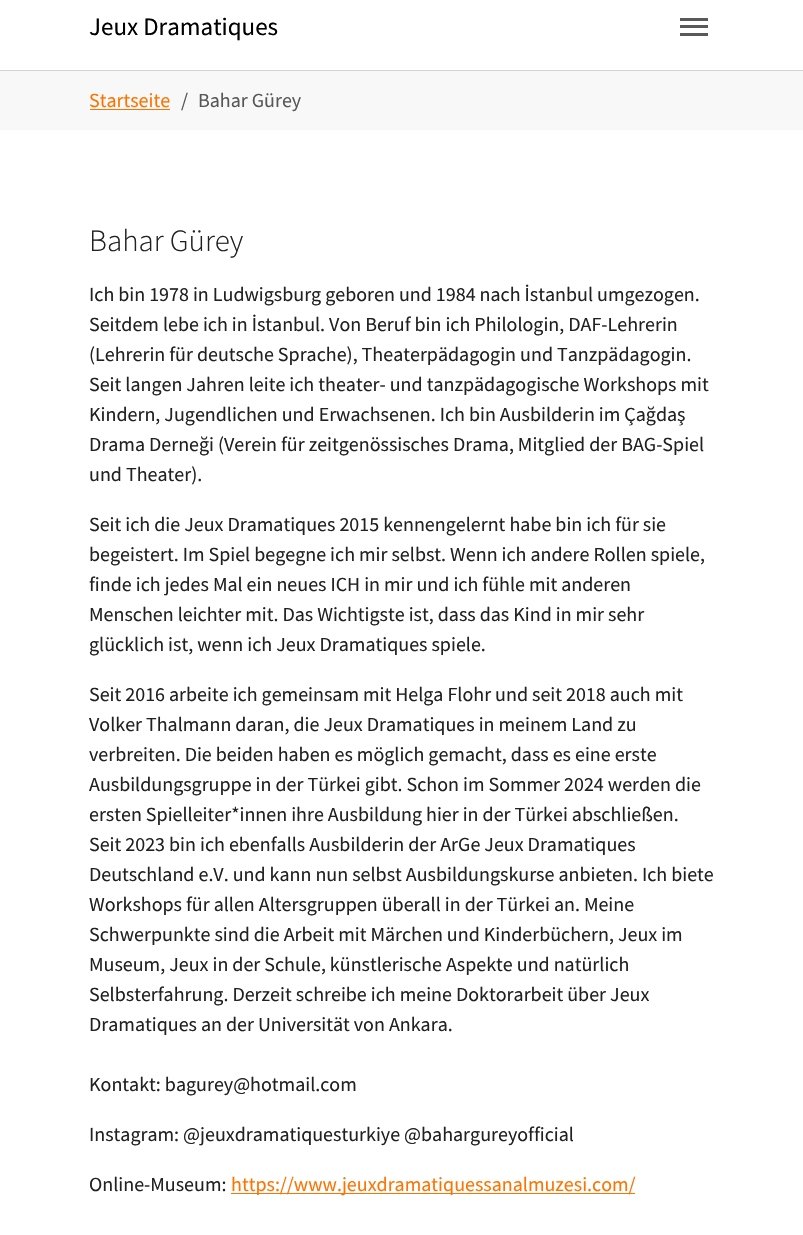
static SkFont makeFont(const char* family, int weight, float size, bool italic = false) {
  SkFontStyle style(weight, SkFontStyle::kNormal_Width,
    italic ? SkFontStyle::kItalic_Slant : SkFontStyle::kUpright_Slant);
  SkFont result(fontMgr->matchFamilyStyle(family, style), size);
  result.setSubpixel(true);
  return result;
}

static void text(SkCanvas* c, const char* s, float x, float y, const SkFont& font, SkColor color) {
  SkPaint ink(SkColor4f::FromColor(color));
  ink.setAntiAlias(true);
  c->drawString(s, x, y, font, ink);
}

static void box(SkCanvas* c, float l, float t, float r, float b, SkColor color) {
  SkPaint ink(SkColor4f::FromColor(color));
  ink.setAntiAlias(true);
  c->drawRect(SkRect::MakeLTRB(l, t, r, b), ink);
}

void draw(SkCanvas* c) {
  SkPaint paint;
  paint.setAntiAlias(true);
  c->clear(0xffffffff);
  paint.setColor(0xffd3d3d3);
  c->drawPath(SkPathBuilder().moveTo(0, 70).lineTo(0, 71).lineTo(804, 71).lineTo(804, -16).lineTo(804, 70).close().detach(), paint);
  SkFont face1 = makeFont("Source Sans Pro", 400, 25);
  text(c, "Jeux Dramatiques", 89, 35, face1, 0xff000000);
  box(c, 680, 25, 708, 28, 0xff595959);
  box(c, 680, 18, 708, 21, 0xff595959);
  box(c, 680, 33, 708, 36, 0xff595959);
  box(c, 0, 71, 803, 130, 0xfff8f8f8);
  SkFont face2 = makeFont("Source Sans Pro", 400, 20);
  text(c, "Startseite", 89, 107, face2, 0xfffe7300);
  box(c, 90, 109, 170, 110, 0xfffe7300);
  text(c, "/", 181, 107, face2, 0xff575757);
  text(c, "Bahar Gürey", 198, 107, face2, 0xff575757);
  SkFont face3 = makeFont("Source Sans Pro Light", 300, 31);
  text(c, "Bahar Gürey", 89, 251, face3, 0xff212121);
  text(c, "Ich bin 1978 in Ludwigsburg geboren und 1984 nach İstanbul umgezogen.", 89, 301, face2, 0xff212121);
  text(c, "Seitdem lebe ich in İstanbul. Von Beruf bin ich Philologin, DAF-Lehrerin", 89, 331, face2, 0xff212121);
  text(c, "(Lehrerin für deutsche Sprache), Theaterpädagogin und Tanzpädagogin.", 89, 361, face2, 0xff212121);
  text(c, "Seit langen Jahren leite ich theater- und tanzpädagogische Workshops mit", 89, 391, face2, 0xff212121);
  text(c, "Kindern, Jugendlichen und Erwachsenen. Ich bin Ausbilderin im Çağdaş", 89, 421, face2, 0xff212121);
  text(c, "Drama Derneği (Verein für zeitgenössisches Drama, Mitglied der BAG-Spiel", 89, 451, face2, 0xff212121);
  text(c, "und Theater).", 89, 481, face2, 0xff212121);
  text(c, "Seit ich die Jeux Dramatiques 2015 kennengelernt habe bin ich für sie", 89, 531, face2, 0xff212121);
  text(c, "begeistert. Im Spiel begegne ich mir selbst. Wenn ich andere Rollen spiele,", 89, 561, face2, 0xff212121);
  text(c, "finde ich jedes Mal ein neues ICH in mir und ich fühle mit anderen", 89, 591, face2, 0xff212121);
  text(c, "Menschen leichter mit. Das Wichtigste ist, dass das Kind in mir sehr", 89, 621, face2, 0xff212121);
  text(c, "glücklich ist, wenn ich Jeux Dramatiques spiele.", 89, 651, face2, 0xff212121);
  text(c, "Seit 2016 arbeite ich gemeinsam mit Helga Flohr und seit 2018 auch mit", 89, 701, face2, 0xff212121);
  text(c, "Volker Thalmann daran, die Jeux Dramatiques in meinem Land zu", 89, 731, face2, 0xff212121);
  text(c, "verbreiten. Die beiden haben es möglich gemacht, dass es eine erste", 89, 761, face2, 0xff212121);
  text(c, "Ausbildungsgruppe in der Türkei gibt. Schon im Sommer 2024 werden die", 89, 791, face2, 0xff212121);
  text(c, "ersten Spielleiter*innen ihre Ausbildung hier in der Türkei abschließen.", 89, 821, face2, 0xff212121);
  text(c, "Seit 2023 bin ich ebenfalls Ausbilderin der ArGe Jeux Dramatiques", 89, 851, face2, 0xff212121);
  text(c, "Deutschland e.V. und kann nun selbst Ausbildungskurse anbieten. Ich biete", 89, 881, face2, 0xff212121);
  text(c, "Workshops für allen Altersgruppen überall in der Türkei an. Meine", 89, 911, face2, 0xff212121);
  text(c, "Schwerpunkte sind die Arbeit mit Märchen und Kinderbüchern, Jeux im", 89, 941, face2, 0xff212121);
  text(c, "Museum, Jeux in der Schule, künstlerische Aspekte und natürlich", 89, 971, face2, 0xff212121);
  text(c, "Selbsterfahrung. Derzeit schreibe ich meine Doktorarbeit über Jeux", 89, 1001, face2, 0xff212121);
  text(c, "Dramatiques an der Universität von Ankara.", 89, 1031, face2, 0xff212121);
  text(c, "Kontakt: bagurey@hotmail.com", 89, 1091, face2, 0xff212121);
  text(c, "Instagram: @jeuxdramatiquesturkiye @bahargureyofficial", 89, 1141, face2, 0xff212121);
  text(c, "Online-Museum:", 89, 1191, face2, 0xff212121);
  box(c, 231, 1193, 635, 1194, 0xfffe7300);
  text(c, "https://www.jeuxdramatiquessanalmuzesi.com/", 231, 1191, face2, 0xfffe7300);
}
